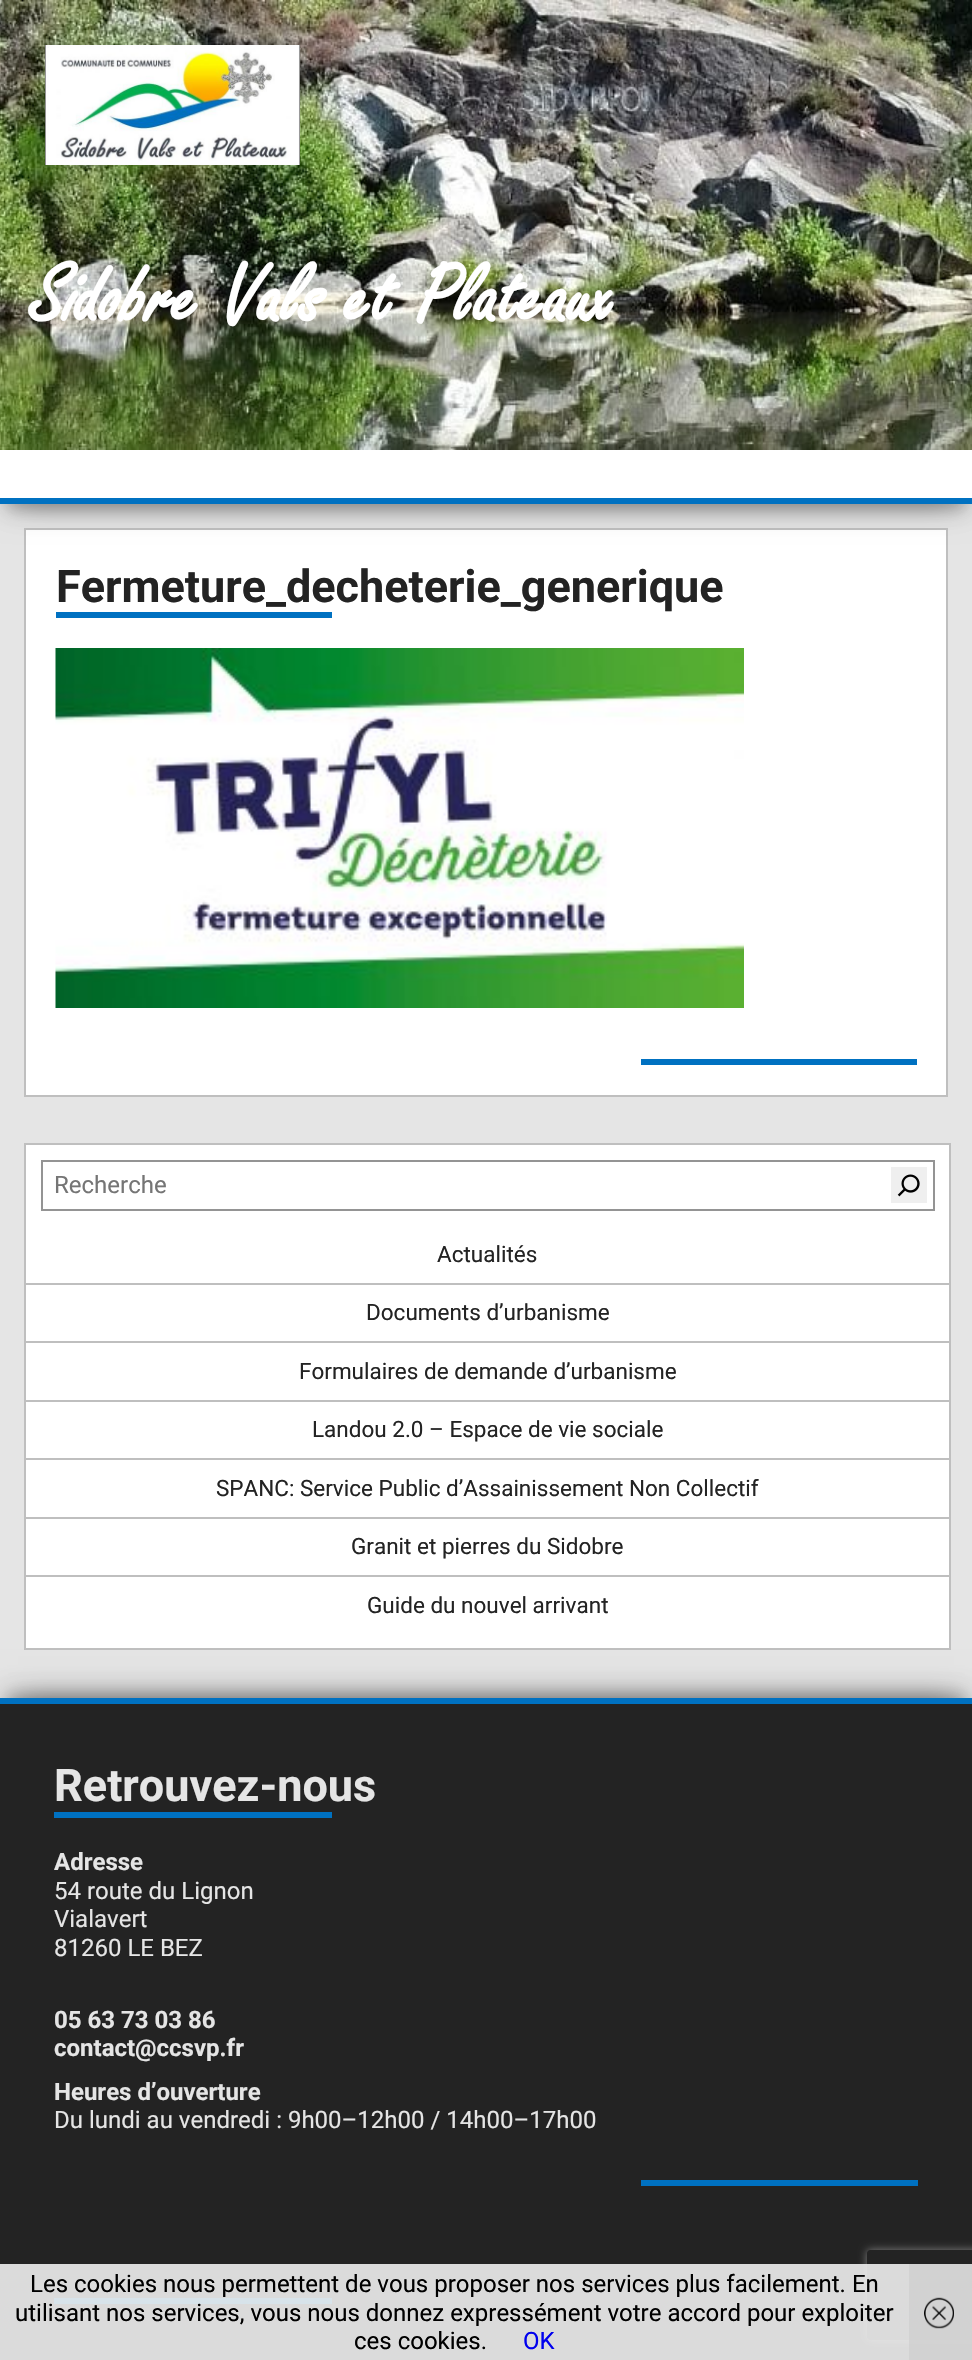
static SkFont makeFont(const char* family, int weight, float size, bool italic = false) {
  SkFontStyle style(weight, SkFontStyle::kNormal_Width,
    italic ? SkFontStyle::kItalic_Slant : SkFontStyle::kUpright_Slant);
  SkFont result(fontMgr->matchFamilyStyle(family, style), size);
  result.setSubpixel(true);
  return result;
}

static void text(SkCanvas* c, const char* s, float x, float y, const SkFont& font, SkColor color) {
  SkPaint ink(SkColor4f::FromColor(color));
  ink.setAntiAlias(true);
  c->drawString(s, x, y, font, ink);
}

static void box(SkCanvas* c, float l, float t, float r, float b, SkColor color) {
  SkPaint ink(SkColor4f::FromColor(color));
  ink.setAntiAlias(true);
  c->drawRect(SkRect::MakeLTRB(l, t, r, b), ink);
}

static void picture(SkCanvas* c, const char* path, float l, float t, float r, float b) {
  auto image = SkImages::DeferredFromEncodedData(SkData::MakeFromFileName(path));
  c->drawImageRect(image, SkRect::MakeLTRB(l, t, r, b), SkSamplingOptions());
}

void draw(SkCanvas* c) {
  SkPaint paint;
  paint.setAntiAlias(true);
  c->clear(0xffe5e5e5);
  picture(c, "img_01.png", 0, 0, 972, 450);
  picture(c, "img_02.png", 45, 45, 300, 165);
  SkFont face1 = makeFont("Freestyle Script", 700, 90);
  text(c, "Sidobre Vals et Plateaux", 30, 323, face1, 0xffffffff);
  paint.setColor(0xffffffff);
  c->drawRect(SkRect::MakeLTRB(25, 529, 947, 1096), paint);
  paint.setStyle(SkPaint::kStroke_Style);
  paint.setStrokeWidth(2);
  paint.setColor(0xffbfbfbf);
  c->drawRect(SkRect::MakeLTRB(25, 529, 947, 1096), paint);
  paint.setStyle(SkPaint::kFill_Style);
  paint.setColor(0x33000000);
  paint.setMaskFilter(SkMaskFilter::MakeBlur(kNormal_SkBlurStyle, 7.5f));
  c->drawRect(SkRect::MakeLTRB(8, 470, 965, 509), paint);
  paint.setMaskFilter(nullptr);
  paint.setColor(0x1f000000);
  paint.setMaskFilter(SkMaskFilter::MakeBlur(kNormal_SkBlurStyle, 15));
  c->drawRect(SkRect::MakeLTRB(0, 455, 972, 509), paint);
  paint.setMaskFilter(nullptr);
  paint.setColor(0x6b000000);
  paint.setMaskFilter(SkMaskFilter::MakeBlur(kNormal_SkBlurStyle, 15));
  c->drawRect(SkRect::MakeLTRB(18, 483, 954, 501), paint);
  paint.setMaskFilter(nullptr);
  box(c, 0, 450, 972, 498, 0xffffffff);
  box(c, 0, 498, 972, 504, 0xff0071c1);
  SkFont face2 = makeFont("Roboto", 700, 45);
  text(c, "Fermeture_decheterie_generique", 56, 602, face2, 0xff232323);
  box(c, 56, 612, 332, 618, 0xff0071c1);
  picture(c, "img_03.png", 55, 648, 744, 1008);
  box(c, 641, 1059, 917, 1065, 0xff0071c1);
  paint.setColor(0xffffffff);
  c->drawRect(SkRect::MakeLTRB(25, 1144, 950, 1649), paint);
  paint.setStyle(SkPaint::kStroke_Style);
  paint.setColor(0xffbfbfbf);
  c->drawRect(SkRect::MakeLTRB(25, 1144, 950, 1649), paint);
  paint.setColor(0xff949494);
  c->drawRect(SkRect::MakeLTRB(42, 1161, 934, 1210), paint);
  SkFont face3 = makeFont("Roboto", 400, 24);
  text(c, "Recherche", 54, 1193, face3, 0xff757575);
  box(c, 891, 1167, 927, 1203, 0xffefefef);
  picture(c, "img_04.png", 897, 1174, 920, 1197);
  box(c, 26, 1283, 950, 1285, 0xffbfbfbf);
  SkFont face4 = makeFont("Roboto", 400, 22.5f);
  text(c, "Actualités", 437, 1262, face4, 0xff232323);
  box(c, 26, 1341, 950, 1343, 0xffbfbfbf);
  text(c, "Documents d’urbanisme", 366, 1320, face4, 0xff232323);
  box(c, 26, 1400, 950, 1402, 0xffbfbfbf);
  text(c, "Formulaires de demande d’urbanisme", 299, 1379, face4, 0xff232323);
  box(c, 26, 1458, 950, 1460, 0xffbfbfbf);
  text(c, "Landou 2.0 – Espace de vie sociale", 312, 1437, face4, 0xff232323);
  box(c, 26, 1517, 950, 1519, 0xffbfbfbf);
  text(c, "SPANC: Service Public d’Assainissement Non Collectif", 216, 1496, face4, 0xff232323);
  box(c, 26, 1575, 950, 1577, 0xffbfbfbf);
  text(c, "Granit et pierres du Sidobre", 351, 1554, face4, 0xff232323);
  text(c, "Guide du nouvel arrivant", 367, 1613, face4, 0xff232323);
  paint.setStyle(SkPaint::kFill_Style);
  paint.setColor(0x33000000);
  paint.setMaskFilter(SkMaskFilter::MakeBlur(kNormal_SkBlurStyle, 7.5f));
  c->drawRect(SkRect::MakeLTRB(8, 1694, 965, 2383), paint);
  paint.setMaskFilter(nullptr);
  paint.setColor(0x1f000000);
  paint.setMaskFilter(SkMaskFilter::MakeBlur(kNormal_SkBlurStyle, 15));
  c->drawRect(SkRect::MakeLTRB(0, 1694, 972, 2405), paint);
  paint.setMaskFilter(nullptr);
  paint.setColor(0x6b000000);
  paint.setMaskFilter(SkMaskFilter::MakeBlur(kNormal_SkBlurStyle, 15));
  c->drawRect(SkRect::MakeLTRB(18, 1701, 954, 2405), paint);
  paint.setMaskFilter(nullptr);
  box(c, 0, 1704, 972, 2360, 0xff232323);
  box(c, 0, 1698, 972, 1704, 0xff0071c1);
  text(c, "Retrouvez-nous", 54, 1801, face2, 0xffe5e5e5);
  box(c, 54, 1812, 332, 1818, 0xff0071c1);
  SkFont face5 = makeFont("Roboto", 700, 24);
  text(c, "Adresse", 54, 1870, face5, 0xffe5e5e5);
  text(c, "54 route du Lignon", 54, 1899, face3, 0xffe5e5e5);
  text(c, "Vialavert", 54, 1927, face3, 0xffe5e5e5);
  text(c, "81260 LE BEZ", 54, 1956, face3, 0xffe5e5e5);
  text(c, "05 63 73 03 86", 54, 2028, face5, 0xffe5e5e5);
  text(c, "contact@ccsvp.fr", 54, 2056, face5, 0xffe5e5e5);
  text(c, "Heures d’ouverture", 54, 2100, face5, 0xffe5e5e5);
  text(c, "Du lundi au vendredi : 9h00–12h00 / 14h00–17h00", 54, 2128, face3, 0xffe5e5e5);
  box(c, 641, 2180, 918, 2186, 0xff0071c1);
  box(c, 54, 2298, 332, 2304, 0xff0071c1);
  c->save();
  c->clipPath(SkPathBuilder(SkPathFillType::kEvenOdd).moveTo(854, 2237).lineTo(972, 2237).lineTo(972, 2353).lineTo(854, 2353).close().moveTo(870, 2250).lineTo(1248, 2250).cubicTo(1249.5f, 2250, 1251, 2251.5f, 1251, 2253).lineTo(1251, 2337).cubicTo(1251, 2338.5f, 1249.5f, 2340, 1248, 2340).lineTo(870, 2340).cubicTo(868.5f, 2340, 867, 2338.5f, 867, 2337).lineTo(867, 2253).cubicTo(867, 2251.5f, 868.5f, 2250, 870, 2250).close().detach(), true);
  paint.setColor(0xff808080);
  paint.setMaskFilter(SkMaskFilter::MakeBlur(kNormal_SkBlurStyle, 4));
  c->drawRoundRect(SkRect::MakeLTRB(867, 2250, 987, 2340), 3, 3, paint);
  paint.setMaskFilter(nullptr);
  c->restore();
  box(c, 0, 2264, 972, 2360, 0xe6eeeeee);
  text(c, "Les cookies nous permettent de vous proposer nos services plus facilement. En", 30, 2292, face3, 0xff000000);
  text(c, "utilisant nos services, vous nous donnez expressément votre accord pour exploiter", 15, 2321, face3, 0xff000000);
  text(c, "ces cookies.", 354, 2349, face3, 0xff000000);
  text(c, "OK", 523, 2349, face3, 0xff0000ee);
  box(c, 909, 2264, 972, 2360, 0x99cccccc);
  picture(c, "img_05.png", 924, 2297, 954, 2329);
}
